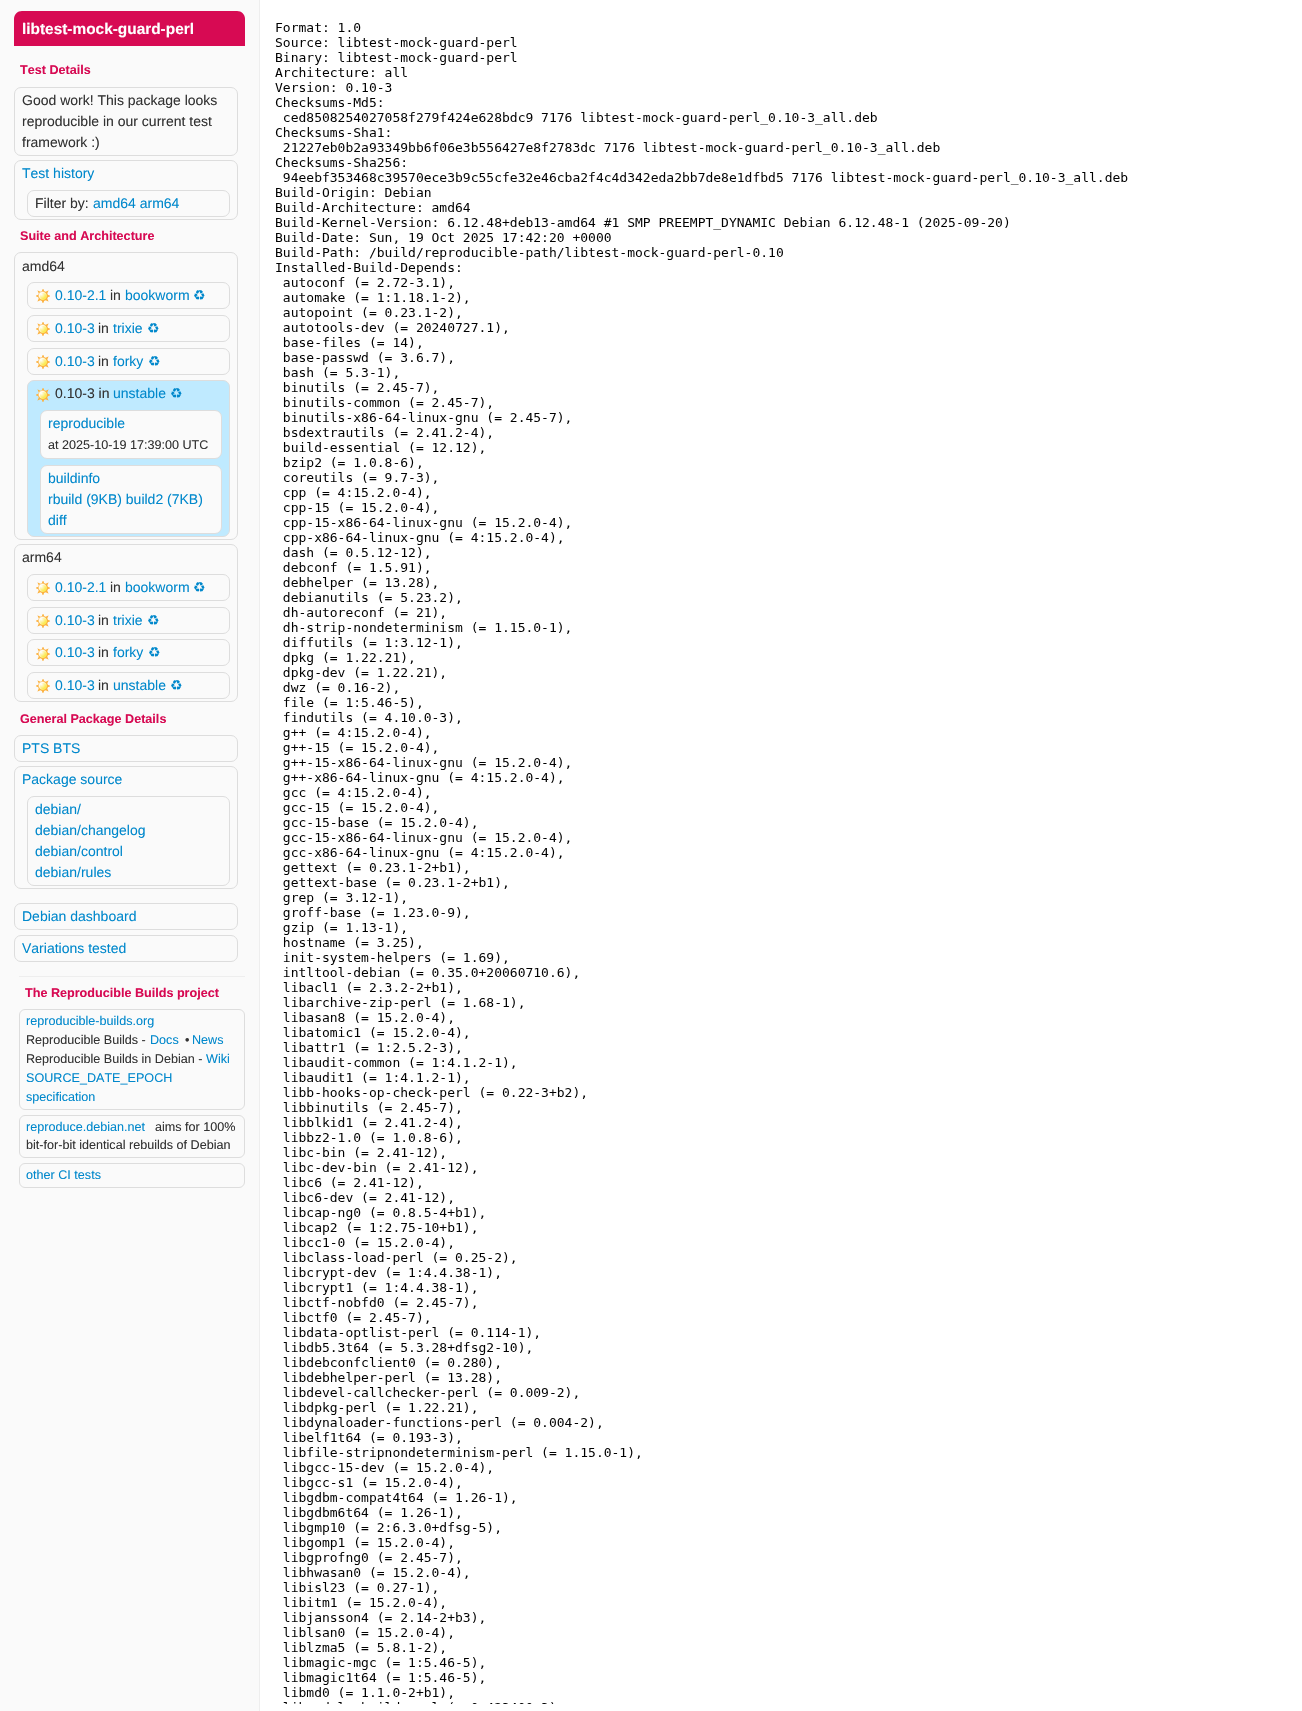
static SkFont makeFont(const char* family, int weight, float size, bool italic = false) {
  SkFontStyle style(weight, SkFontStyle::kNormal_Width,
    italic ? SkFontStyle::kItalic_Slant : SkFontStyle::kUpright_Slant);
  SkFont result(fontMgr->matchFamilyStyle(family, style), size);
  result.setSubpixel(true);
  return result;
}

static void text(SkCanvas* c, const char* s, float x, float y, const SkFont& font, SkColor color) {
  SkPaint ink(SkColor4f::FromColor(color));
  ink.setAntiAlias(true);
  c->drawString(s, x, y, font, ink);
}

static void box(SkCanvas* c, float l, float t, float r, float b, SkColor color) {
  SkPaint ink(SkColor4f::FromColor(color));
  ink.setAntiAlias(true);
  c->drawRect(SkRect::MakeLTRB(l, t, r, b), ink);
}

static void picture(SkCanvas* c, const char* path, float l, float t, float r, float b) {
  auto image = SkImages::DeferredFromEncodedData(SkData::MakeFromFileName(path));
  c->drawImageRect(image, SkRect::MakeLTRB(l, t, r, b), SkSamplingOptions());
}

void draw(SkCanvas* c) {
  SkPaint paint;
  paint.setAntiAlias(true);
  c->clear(0xffffffff);
  box(c, 0, 0, 259, 1711, 0xfffafafa);
  box(c, 259, 0, 260, 1711, 0xffeeeeee);
  paint.setColor(0xffd70a53);
  c->drawPath(SkPathBuilder().moveTo(22, 11).lineTo(237, 11).cubicTo(241.5f, 11, 245, 14.5f, 245, 19).lineTo(245, 46).lineTo(14, 46).lineTo(14, 19).cubicTo(14, 14.5f, 17.5f, 11, 22, 11).close().detach(), paint);
  SkFont face1 = makeFont("Liberation Sans", 700, 15.4f);
  text(c, "libtest-mock-guard-perl", 22, 34, face1, 0xffffffff);
  SkFont face2 = makeFont("Liberation Sans", 700, 12.6f);
  text(c, "Test Details", 20, 74, face2, 0xffd70a53);
  paint.setStyle(SkPaint::kStroke_Style);
  paint.setStrokeWidth(1);
  paint.setColor(0xffdddddd);
  c->drawRoundRect(SkRect::MakeLTRB(14.5f, 87.5f, 237.5f, 155.5f), 6.5f, 6.5f, paint);
  SkFont face3 = makeFont("Liberation Sans", 400, 14);
  text(c, "Good work! This package looks", 22, 105, face3, 0xff333333);
  text(c, "reproducible in our current test", 22, 126, face3, 0xff333333);
  text(c, "framework :)", 22, 147, face3, 0xff333333);
  c->drawRoundRect(SkRect::MakeLTRB(14.5f, 160.5f, 237.5f, 219.5f), 6.5f, 6.5f, paint);
  text(c, "Test history", 22, 178, face3, 0xff0088cc);
  c->drawRoundRect(SkRect::MakeLTRB(27.5f, 190.5f, 229.5f, 216.5f), 6.5f, 6.5f, paint);
  text(c, "Filter by:", 35, 208, face3, 0xff333333);
  text(c, "amd64 arm64", 93, 208, face3, 0xff0088cc);
  text(c, "Suite and Architecture", 20, 240, face2, 0xffd70a53);
  c->drawRoundRect(SkRect::MakeLTRB(14.5f, 252.5f, 237.5f, 539.5f), 6.5f, 6.5f, paint);
  text(c, "amd64", 22, 271, face3, 0xff333333);
  c->drawRoundRect(SkRect::MakeLTRB(27.5f, 282.5f, 229.5f, 308.5f), 6.5f, 6.5f, paint);
  picture(c, "img_01.png", 36, 289, 50, 303);
  text(c, "0.10-2.1", 55, 300, face3, 0xff0088cc);
  text(c, "in", 110, 300, face3, 0xff333333);
  text(c, "bookworm", 125, 300, face3, 0xff0088cc);
  SkFont face4 = makeFont("DejaVu Sans", 400, 14);
  text(c, "♻", 193, 300, face4, 0xff0088cc);
  c->drawRoundRect(SkRect::MakeLTRB(27.5f, 315.5f, 229.5f, 341.5f), 6.5f, 6.5f, paint);
  picture(c, "img_01.png", 36, 322, 50, 336);
  text(c, "0.10-3", 55, 333, face3, 0xff0088cc);
  text(c, "in", 98, 333, face3, 0xff333333);
  text(c, "trixie", 113, 333, face3, 0xff0088cc);
  text(c, "♻", 147, 333, face4, 0xff0088cc);
  c->drawRoundRect(SkRect::MakeLTRB(27.5f, 348.5f, 229.5f, 374.5f), 6.5f, 6.5f, paint);
  picture(c, "img_01.png", 36, 355, 50, 369);
  text(c, "0.10-3", 55, 366, face3, 0xff0088cc);
  text(c, "in", 98, 366, face3, 0xff333333);
  text(c, "forky", 113, 366, face3, 0xff0088cc);
  text(c, "♻", 148, 366, face4, 0xff0088cc);
  paint.setStyle(SkPaint::kFill_Style);
  paint.setColor(0xffbfeaff);
  c->drawRoundRect(SkRect::MakeLTRB(27.5f, 380.5f, 229.5f, 536.5f), 6.5f, 6.5f, paint);
  paint.setStyle(SkPaint::kStroke_Style);
  paint.setColor(0xffdddddd);
  c->drawRoundRect(SkRect::MakeLTRB(27.5f, 380.5f, 229.5f, 536.5f), 6.5f, 6.5f, paint);
  picture(c, "img_02.png", 36, 388, 50, 402);
  text(c, "0.10-3 in", 55, 398, face3, 0xff333333);
  text(c, "unstable", 113, 398, face3, 0xff0088cc);
  text(c, "♻", 170, 398, face4, 0xff0088cc);
  paint.setStyle(SkPaint::kFill_Style);
  paint.setColor(0xfffafafa);
  c->drawRoundRect(SkRect::MakeLTRB(40.5f, 410.5f, 221.5f, 458.5f), 6.5f, 6.5f, paint);
  paint.setStyle(SkPaint::kStroke_Style);
  paint.setColor(0xffdddddd);
  c->drawRoundRect(SkRect::MakeLTRB(40.5f, 410.5f, 221.5f, 458.5f), 6.5f, 6.5f, paint);
  text(c, "reproducible", 48, 428, face3, 0xff0088cc);
  SkFont face5 = makeFont("Liberation Sans", 400, 12.6f);
  text(c, "at 2025-10-19 17:39:00 UTC", 48, 449, face5, 0xff333333);
  paint.setStyle(SkPaint::kFill_Style);
  paint.setColor(0xfffafafa);
  c->drawRoundRect(SkRect::MakeLTRB(40.5f, 465.5f, 221.5f, 533.5f), 6.5f, 6.5f, paint);
  paint.setStyle(SkPaint::kStroke_Style);
  paint.setColor(0xffdddddd);
  c->drawRoundRect(SkRect::MakeLTRB(40.5f, 465.5f, 221.5f, 533.5f), 6.5f, 6.5f, paint);
  text(c, "buildinfo", 48, 483, face3, 0xff0088cc);
  text(c, "rbuild (9KB) build2 (7KB)", 48, 504, face3, 0xff0088cc);
  text(c, "diff", 48, 525, face3, 0xff0088cc);
  c->drawRoundRect(SkRect::MakeLTRB(14.5f, 544.5f, 237.5f, 701.5f), 6.5f, 6.5f, paint);
  text(c, "arm64", 22, 562, face3, 0xff333333);
  c->drawRoundRect(SkRect::MakeLTRB(27.5f, 574.5f, 229.5f, 600.5f), 6.5f, 6.5f, paint);
  picture(c, "img_01.png", 36, 581, 50, 595);
  text(c, "0.10-2.1", 55, 592, face3, 0xff0088cc);
  text(c, "in", 110, 592, face3, 0xff333333);
  text(c, "bookworm", 125, 592, face3, 0xff0088cc);
  text(c, "♻", 193, 592, face4, 0xff0088cc);
  c->drawRoundRect(SkRect::MakeLTRB(27.5f, 607.5f, 229.5f, 633.5f), 6.5f, 6.5f, paint);
  picture(c, "img_01.png", 36, 614, 50, 628);
  text(c, "0.10-3", 55, 625, face3, 0xff0088cc);
  text(c, "in", 98, 625, face3, 0xff333333);
  text(c, "trixie", 113, 625, face3, 0xff0088cc);
  text(c, "♻", 147, 625, face4, 0xff0088cc);
  c->drawRoundRect(SkRect::MakeLTRB(27.5f, 639.5f, 229.5f, 665.5f), 6.5f, 6.5f, paint);
  picture(c, "img_01.png", 36, 647, 50, 661);
  text(c, "0.10-3", 55, 657, face3, 0xff0088cc);
  text(c, "in", 98, 657, face3, 0xff333333);
  text(c, "forky", 113, 657, face3, 0xff0088cc);
  text(c, "♻", 148, 657, face4, 0xff0088cc);
  c->drawRoundRect(SkRect::MakeLTRB(27.5f, 672.5f, 229.5f, 698.5f), 6.5f, 6.5f, paint);
  picture(c, "img_01.png", 36, 679, 50, 693);
  text(c, "0.10-3", 55, 690, face3, 0xff0088cc);
  text(c, "in", 98, 690, face3, 0xff333333);
  text(c, "unstable", 113, 690, face3, 0xff0088cc);
  text(c, "♻", 170, 690, face4, 0xff0088cc);
  text(c, "General Package Details", 20, 723, face2, 0xffd70a53);
  c->drawRoundRect(SkRect::MakeLTRB(14.5f, 735.5f, 237.5f, 761.5f), 6.5f, 6.5f, paint);
  text(c, "PTS BTS", 22, 753, face3, 0xff0088cc);
  c->drawRoundRect(SkRect::MakeLTRB(14.5f, 766.5f, 237.5f, 888.5f), 6.5f, 6.5f, paint);
  text(c, "Package source", 22, 784, face3, 0xff0088cc);
  c->drawRoundRect(SkRect::MakeLTRB(27.5f, 796.5f, 229.5f, 885.5f), 6.5f, 6.5f, paint);
  text(c, "debian/", 35, 814, face3, 0xff0088cc);
  text(c, "debian/changelog", 35, 835, face3, 0xff0088cc);
  text(c, "debian/control", 35, 856, face3, 0xff0088cc);
  text(c, "debian/rules", 35, 877, face3, 0xff0088cc);
  c->drawRoundRect(SkRect::MakeLTRB(14.5f, 903.5f, 237.5f, 929.5f), 6.5f, 6.5f, paint);
  text(c, "Debian dashboard", 22, 921, face3, 0xff0088cc);
  c->drawRoundRect(SkRect::MakeLTRB(14.5f, 935.5f, 237.5f, 961.5f), 6.5f, 6.5f, paint);
  text(c, "Variations tested", 22, 953, face3, 0xff0088cc);
  box(c, 19, 976, 245, 977, 0xffeeeeee);
  text(c, "The Reproducible Builds project", 25, 997, face2, 0xffd70a53);
  c->drawRoundRect(SkRect::MakeLTRB(19.5f, 1009.5f, 244.5f, 1109.5f), 5.5f, 5.5f, paint);
  text(c, "reproducible-builds.org", 26, 1025, face5, 0xff0088cc);
  text(c, "Reproducible Builds -", 26, 1044, face5, 0xff333333);
  text(c, "Docs", 150, 1044, face5, 0xff0088cc);
  text(c, "•", 185, 1044, face5, 0xff333333);
  text(c, "News", 192, 1044, face5, 0xff0088cc);
  text(c, "Reproducible Builds in Debian -", 26, 1063, face5, 0xff333333);
  text(c, "Wiki", 206, 1063, face5, 0xff0088cc);
  text(c, "SOURCE_DATE_EPOCH", 26, 1082, face5, 0xff0088cc);
  text(c, "specification", 26, 1101, face5, 0xff0088cc);
  c->drawRoundRect(SkRect::MakeLTRB(19.5f, 1115.5f, 244.5f, 1157.5f), 5.5f, 5.5f, paint);
  text(c, "reproduce.debian.net", 26, 1131, face5, 0xff0088cc);
  text(c, "aims for 100%", 155, 1131, face5, 0xff333333);
  text(c, "bit-for-bit identical rebuilds of Debian", 26, 1149, face5, 0xff333333);
  c->drawRoundRect(SkRect::MakeLTRB(19.5f, 1163.5f, 244.5f, 1187.5f), 5.5f, 5.5f, paint);
  text(c, "other CI tests", 26, 1179, face5, 0xff0088cc);
  picture(c, "img_03.png", 275, 23, 1128, 1704);
}
